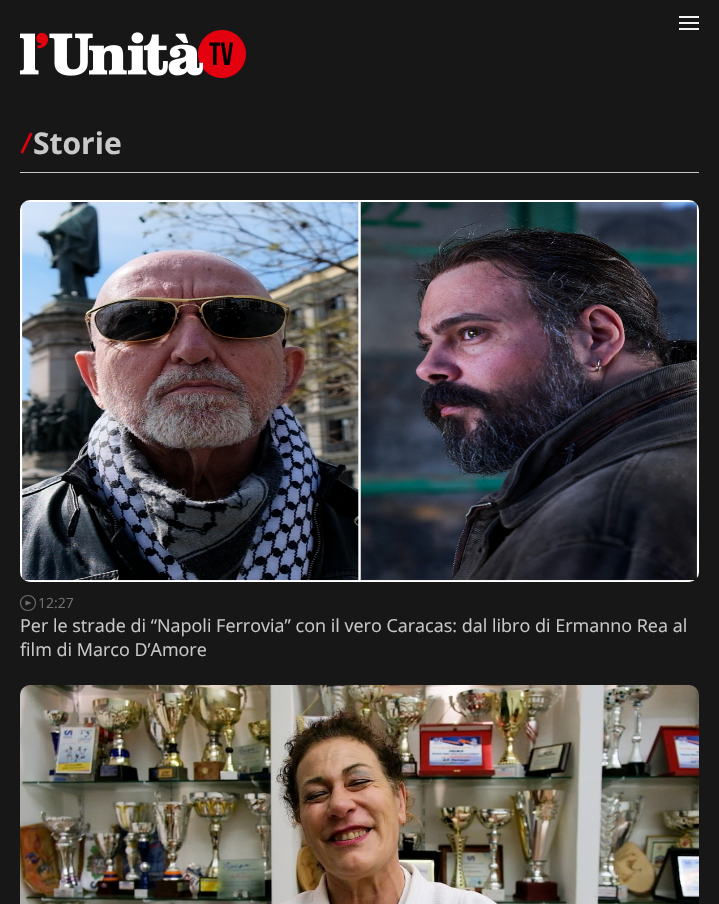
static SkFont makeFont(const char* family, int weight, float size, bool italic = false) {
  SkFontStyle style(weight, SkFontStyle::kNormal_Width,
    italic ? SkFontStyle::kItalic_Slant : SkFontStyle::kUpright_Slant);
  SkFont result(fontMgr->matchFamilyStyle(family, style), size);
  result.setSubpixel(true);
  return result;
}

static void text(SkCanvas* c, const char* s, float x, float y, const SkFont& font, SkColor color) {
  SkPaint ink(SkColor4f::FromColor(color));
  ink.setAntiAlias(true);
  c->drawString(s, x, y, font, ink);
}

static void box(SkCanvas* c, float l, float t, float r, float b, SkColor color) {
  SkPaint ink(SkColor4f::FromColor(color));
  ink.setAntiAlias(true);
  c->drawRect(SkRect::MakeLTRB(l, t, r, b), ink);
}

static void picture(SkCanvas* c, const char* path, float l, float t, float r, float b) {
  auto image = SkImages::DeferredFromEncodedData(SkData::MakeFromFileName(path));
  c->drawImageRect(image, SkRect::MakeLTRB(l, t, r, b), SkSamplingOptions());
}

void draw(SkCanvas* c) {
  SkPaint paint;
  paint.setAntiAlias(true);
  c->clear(0xff171717);
  box(c, 679, 16, 699, 18, 0xfff5f5f5);
  box(c, 679, 22, 699, 24, 0xfff5f5f5);
  box(c, 679, 28, 699, 30, 0xfff5f5f5);
  picture(c, "img_01.png", 20, 30, 246, 78);
  box(c, 20, 172, 699, 173, 0xffc9c9c9);
  paint.setColor(0xffe3000f);
  c->drawPath(SkPathBuilder().moveTo(30, 132.5f).lineTo(32.5f, 133.5f).lineTo(23, 153.5f).lineTo(20.5f, 152.5f).close().detach(), paint);
  SkFont face1 = makeFont("Open Sans", 700, 30);
  text(c, "Storie", 33, 154, face1, 0xffc9c9c9);
  picture(c, "img_02.png", 20, 200, 699, 582);
  paint.setStyle(SkPaint::kStroke_Style);
  paint.setStrokeWidth(1.1f);
  paint.setColor(0xff707070);
  c->drawCircle(28, 603, 7.5f, paint);
  paint.setStyle(SkPaint::kFill_Style);
  c->drawPath(SkPathBuilder().moveTo(31.5f, 603).lineTo(25.5f, 605.5f).lineTo(25.5f, 600.5f).close().detach(), paint);
  SkFont face2 = makeFont("Open Sans", 400, 14);
  text(c, "12:27", 38, 608, face2, 0xff707070);
  SkFont face3 = makeFont("Open Sans", 400, 18);
  text(c, "Per le strade di “Napoli Ferrovia” con il vero Caracas: dal libro di Ermanno Rea al", 20, 632, face3, 0xffc9c9c9);
  text(c, "film di Marco D’Amore", 20, 656, face3, 0xffc9c9c9);
  picture(c, "img_03.png", 20, 685, 699, 904);
}
